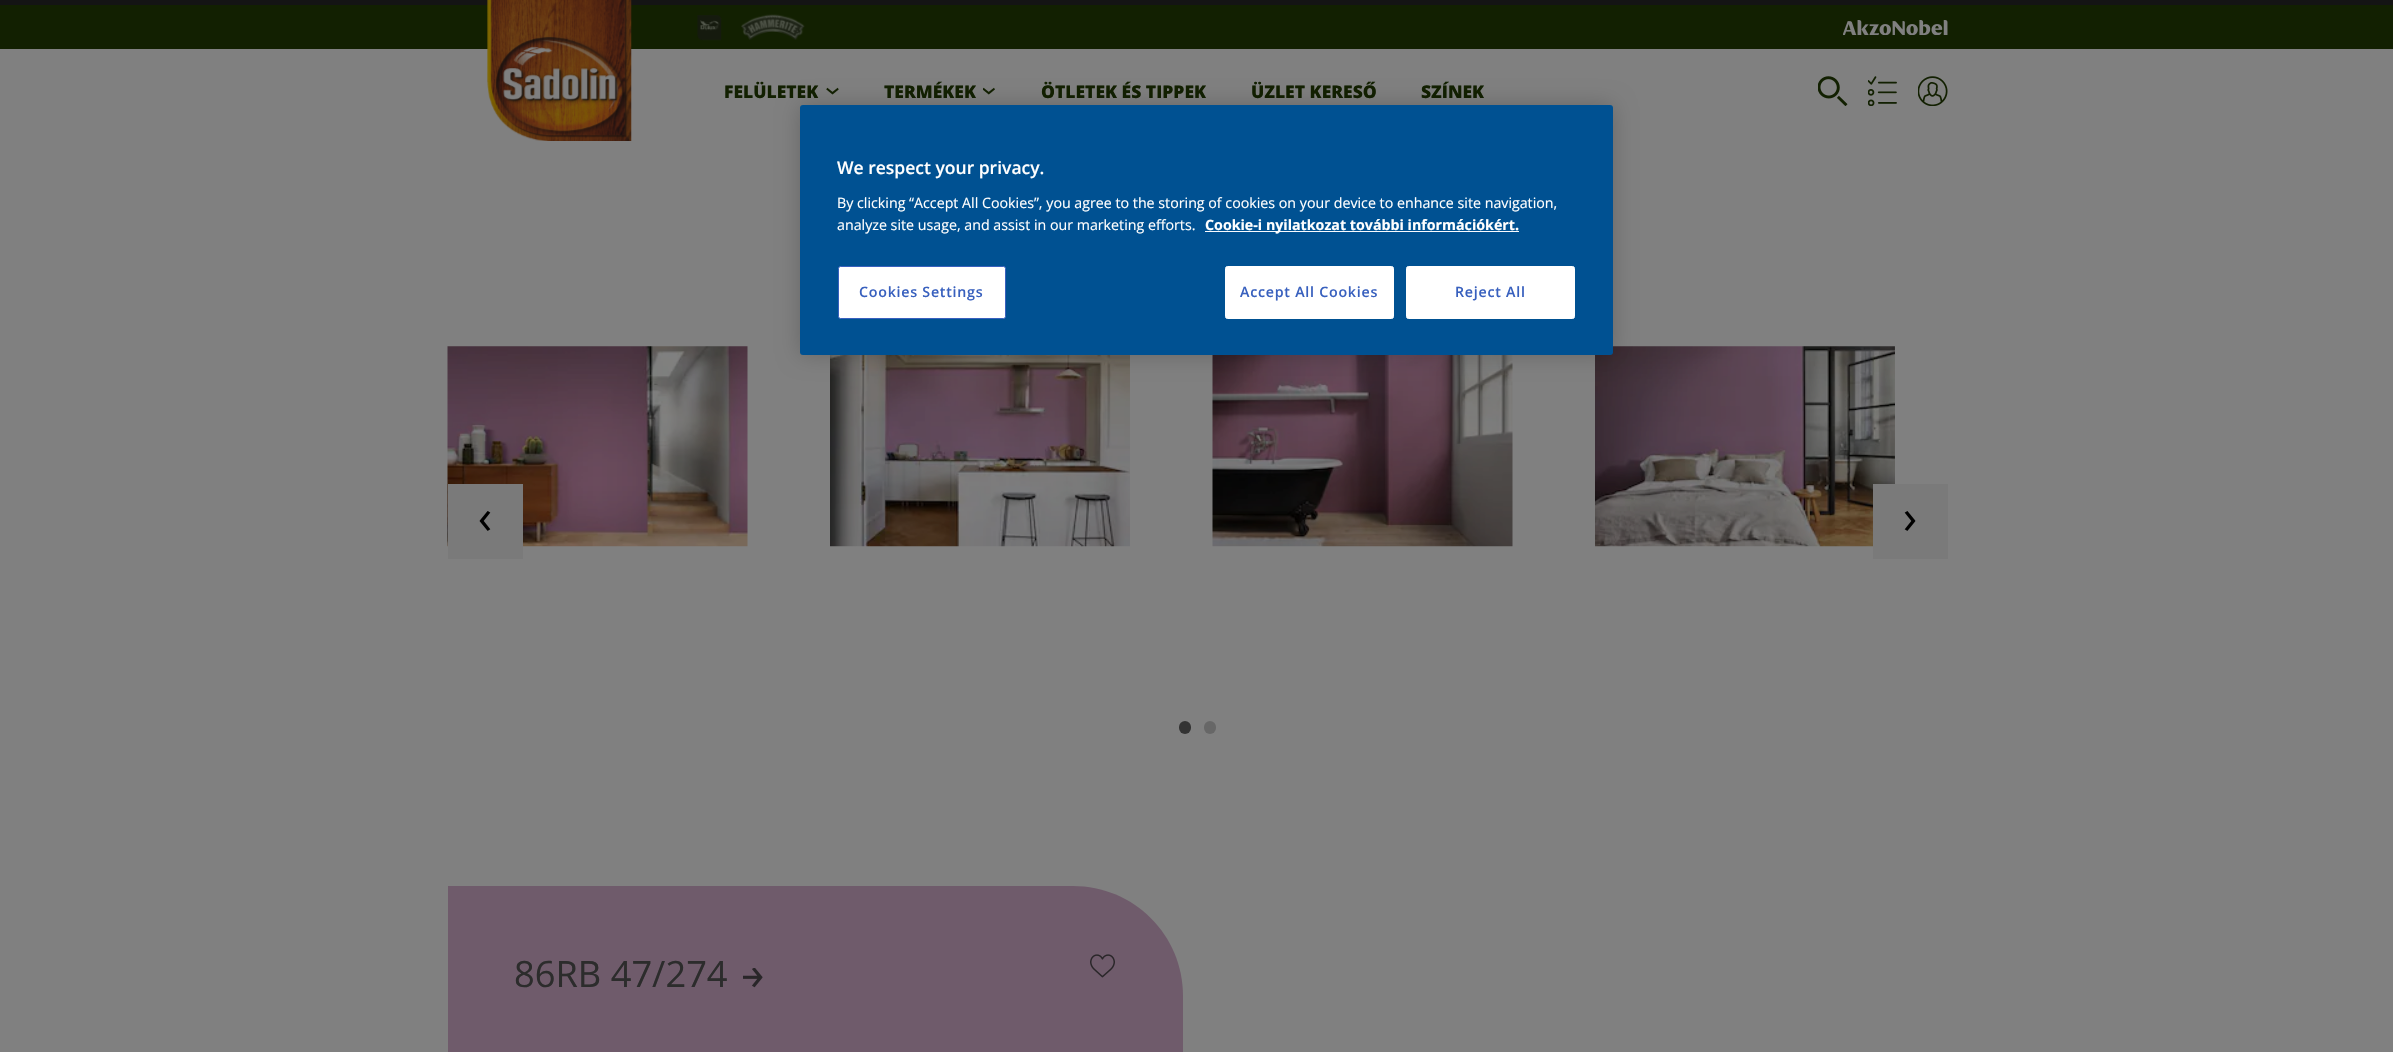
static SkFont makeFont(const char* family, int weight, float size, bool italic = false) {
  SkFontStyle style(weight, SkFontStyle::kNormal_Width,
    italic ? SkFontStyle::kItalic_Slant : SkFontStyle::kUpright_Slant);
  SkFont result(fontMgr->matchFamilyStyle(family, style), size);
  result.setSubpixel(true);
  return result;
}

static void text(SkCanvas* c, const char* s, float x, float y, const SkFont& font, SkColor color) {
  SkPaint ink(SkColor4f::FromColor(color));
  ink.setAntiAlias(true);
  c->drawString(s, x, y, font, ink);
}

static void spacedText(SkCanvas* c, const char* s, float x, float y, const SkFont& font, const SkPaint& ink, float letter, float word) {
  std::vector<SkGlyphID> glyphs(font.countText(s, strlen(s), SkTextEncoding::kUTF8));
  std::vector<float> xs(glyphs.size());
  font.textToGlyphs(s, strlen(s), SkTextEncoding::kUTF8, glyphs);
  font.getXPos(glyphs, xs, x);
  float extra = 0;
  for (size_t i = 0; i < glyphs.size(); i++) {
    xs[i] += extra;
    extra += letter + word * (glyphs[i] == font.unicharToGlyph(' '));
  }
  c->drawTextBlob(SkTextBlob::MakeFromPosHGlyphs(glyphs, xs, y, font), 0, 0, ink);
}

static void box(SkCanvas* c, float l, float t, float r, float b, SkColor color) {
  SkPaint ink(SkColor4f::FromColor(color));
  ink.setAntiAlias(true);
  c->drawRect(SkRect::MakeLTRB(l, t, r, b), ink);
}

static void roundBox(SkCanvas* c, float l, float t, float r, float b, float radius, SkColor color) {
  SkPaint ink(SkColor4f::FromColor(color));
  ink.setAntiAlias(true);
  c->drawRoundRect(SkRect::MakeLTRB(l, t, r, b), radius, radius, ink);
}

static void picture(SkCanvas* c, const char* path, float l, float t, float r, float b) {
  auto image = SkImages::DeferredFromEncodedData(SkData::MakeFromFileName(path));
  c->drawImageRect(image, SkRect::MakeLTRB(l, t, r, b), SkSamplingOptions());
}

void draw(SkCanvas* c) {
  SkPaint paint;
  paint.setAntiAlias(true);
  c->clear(0xff808080);
  box(c, 0, 0, 2393, 5, 0xff141414);
  box(c, 0, 5, 2393, 49, 0xff122001);
  picture(c, "img_01.png", 697, 15, 722, 41);
  picture(c, "img_02.png", 741, 14, 805, 40);
  picture(c, "img_03.png", 1843, 20, 1948, 35);
  picture(c, "img_04.png", 487, 0, 632, 141);
  SkFont face1 = makeFont("Open Sans", 800, 17.5f);
  text(c, "FELÜLETEK", 724, 98, face1, 0xff122001);
  picture(c, "img_05.png", 826, 87, 839, 95);
  text(c, "TERMÉKEK", 884, 98, face1, 0xff122001);
  picture(c, "img_06.png", 983, 87, 995, 95);
  text(c, "ÖTLETEK ÉS TIPPEK", 1041, 98, face1, 0xff122001);
  text(c, "ÜZLET KERESŐ", 1251, 98, face1, 0xff122001);
  text(c, "SZÍNEK", 1421, 98, face1, 0xff122001);
  picture(c, "img_07.png", 1818, 76, 1848, 106);
  picture(c, "img_08.png", 1868, 76, 1897, 106);
  picture(c, "img_09.png", 1918, 76, 1948, 106);
  picture(c, "img_10.png", 447, 346, 748, 547);
  picture(c, "img_11.png", 830, 355, 1130, 547);
  picture(c, "img_12.png", 1212, 355, 1513, 547);
  picture(c, "img_13.png", 1595, 346, 1895, 547);
  box(c, 448, 484, 523, 559, 0xff7a7a7a);
  picture(c, "img_14.png", 479, 511, 491, 531);
  box(c, 1873, 484, 1948, 559, 0xff7a7a7a);
  picture(c, "img_15.png", 1904, 511, 1916, 531);
  roundBox(c, 1179, 721, 1191, 734, 6, 0xff333333);
  roundBox(c, 1204, 721, 1216, 734, 6, 0xff676767);
  paint.setColor(0xff6f5b6b);
  c->drawPath(SkPathBuilder().moveTo(448, 886).lineTo(1073, 886).cubicTo(1134, 886, 1183, 935, 1183, 996).lineTo(1183, 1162).lineTo(558, 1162).cubicTo(497, 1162, 448, 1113, 448, 1052).close().detach(), paint);
  SkFont face2 = makeFont("Open Sans", 400, 36.25f);
  text(c, "86RB 47/274", 514, 987, face2, 0xff2c2c2c);
  picture(c, "img_16.png", 743, 968, 763, 988);
  picture(c, "img_17.png", 1090, 954, 1115, 978);
  paint.setColor(0x33000000);
  paint.setMaskFilter(SkMaskFilter::MakeBlur(kNormal_SkBlurStyle, 11));
  c->drawRoundRect(SkRect::MakeLTRB(800, 105, 1613, 355), 3, 3, paint);
  paint.setMaskFilter(nullptr);
  roundBox(c, 800, 105, 1613, 355, 3, 0xff005192);
  SkFont face3 = makeFont("Open Sans", 600, 17.5f);
  text(c, "We respect your privacy.", 837, 174, face3, 0xffffffff);
  SkFont face4 = makeFont("Open Sans", 400, 14.23f);
  text(c, "By clicking “Accept All Cookies”, you agree to the storing of cookies on your device to enhance site navigation,", 837, 208, face4, 0xffffffff);
  text(c, "analyze site usage, and assist in our marketing efforts.", 837, 230, face4, 0xffffffff);
  box(c, 1205, 231, 1519, 232, 0xfffafbff);
  SkFont face5 = makeFont("Open Sans", 700, 14.23f);
  text(c, "Cookie-i nyilatkozat további információkért.", 1205, 230, face5, 0xffffffff);
  paint.setColor(0xffffffff);
  c->drawRoundRect(SkRect::MakeLTRB(838.5f, 266.5f, 1005.5f, 318.5f), 2, 2, paint);
  paint.setStyle(SkPaint::kStroke_Style);
  paint.setStrokeWidth(1);
  paint.setColor(0xff3860be);
  c->drawRoundRect(SkRect::MakeLTRB(838.5f, 266.5f, 1005.5f, 318.5f), 2, 2, paint);
  SkFont face6 = makeFont("Open Sans", 600, 14.23f);
  paint.setStyle(SkPaint::kFill_Style);
  spacedText(c, "Cookies Settings", 859, 297, face6, paint, 0.75f, 0);
  paint.setColor(0xffffffff);
  c->drawRoundRect(SkRect::MakeLTRB(1225.5f, 266.5f, 1393.5f, 318.5f), 2, 2, paint);
  paint.setStyle(SkPaint::kStroke_Style);
  c->drawRoundRect(SkRect::MakeLTRB(1225.5f, 266.5f, 1393.5f, 318.5f), 2, 2, paint);
  paint.setStyle(SkPaint::kFill_Style);
  paint.setColor(0xff3860be);
  spacedText(c, "Accept All Cookies", 1240, 297, face6, paint, 0.75f, 0);
  paint.setColor(0xffffffff);
  c->drawRoundRect(SkRect::MakeLTRB(1406.5f, 266.5f, 1574.5f, 318.5f), 2, 2, paint);
  paint.setStyle(SkPaint::kStroke_Style);
  c->drawRoundRect(SkRect::MakeLTRB(1406.5f, 266.5f, 1574.5f, 318.5f), 2, 2, paint);
  paint.setStyle(SkPaint::kFill_Style);
  paint.setColor(0xff3860be);
  spacedText(c, "Reject All", 1455, 297, face6, paint, 0.75f, 0);
}
